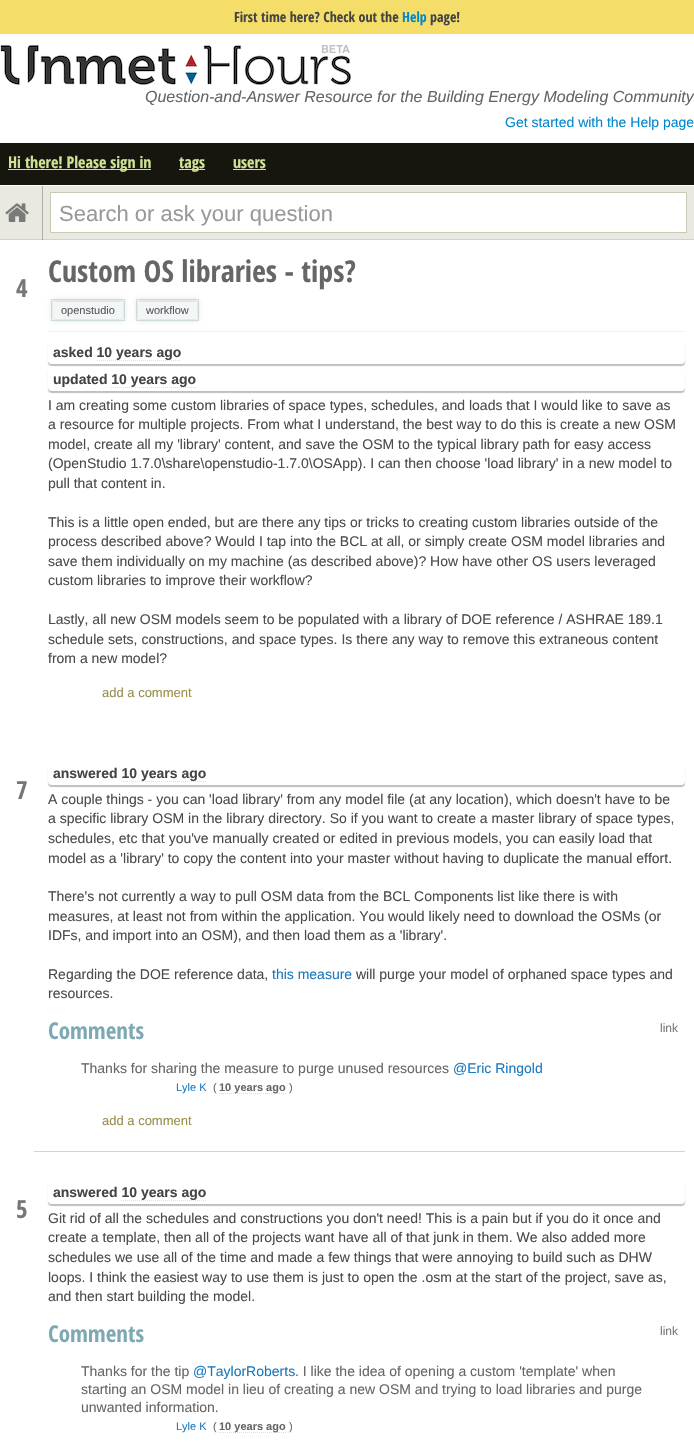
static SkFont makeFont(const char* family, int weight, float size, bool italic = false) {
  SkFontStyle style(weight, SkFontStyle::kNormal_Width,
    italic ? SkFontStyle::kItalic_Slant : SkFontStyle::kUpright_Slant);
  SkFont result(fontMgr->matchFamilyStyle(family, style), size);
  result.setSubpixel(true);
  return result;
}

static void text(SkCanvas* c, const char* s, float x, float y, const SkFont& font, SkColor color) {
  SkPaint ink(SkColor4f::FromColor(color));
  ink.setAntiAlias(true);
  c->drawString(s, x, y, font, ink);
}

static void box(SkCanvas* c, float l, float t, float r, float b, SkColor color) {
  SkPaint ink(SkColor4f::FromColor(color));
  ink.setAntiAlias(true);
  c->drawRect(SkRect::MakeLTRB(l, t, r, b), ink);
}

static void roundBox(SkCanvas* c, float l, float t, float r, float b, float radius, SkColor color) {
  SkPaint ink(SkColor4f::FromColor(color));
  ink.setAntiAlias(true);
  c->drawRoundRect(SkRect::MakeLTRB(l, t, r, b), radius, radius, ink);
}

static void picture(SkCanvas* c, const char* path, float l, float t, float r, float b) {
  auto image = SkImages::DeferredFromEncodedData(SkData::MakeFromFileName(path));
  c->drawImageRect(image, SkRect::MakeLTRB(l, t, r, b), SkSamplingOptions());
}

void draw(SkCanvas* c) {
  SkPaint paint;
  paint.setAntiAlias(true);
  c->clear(0xffffffff);
  box(c, 0, 0, 694, 34, 0xfff5dd69);
  SkFont face1 = makeFont("Open Sans Condensed", 700, 14);
  text(c, "First time here? Check out the", 234, 22, face1, 0xff444444);
  text(c, "Help", 402, 22, face1, 0xff0088cc);
  text(c, "page!", 430, 22, face1, 0xff444444);
  picture(c, "img_01.png", 0, 45, 351, 85);
  SkFont face2 = makeFont("Liberation Sans", 400, 16, true);
  text(c, "Question-and-Answer Resource for the Building Energy Modeling Community", 145, 102, face2, 0xff666666);
  SkFont face3 = makeFont("Liberation Sans", 400, 14);
  text(c, "Get started with the Help page", 505, 127, face3, 0xff0088cc);
  box(c, 0, 143, 694, 185, 0xff16160f);
  box(c, 8, 169, 151, 170, 0xffd0e296);
  SkFont face4 = makeFont("Open Sans Condensed", 700, 16);
  text(c, "Hi there! Please sign in", 8, 168, face4, 0xffd0e296);
  box(c, 179, 169, 205, 170, 0xffd0e296);
  text(c, "tags", 179, 168, face4, 0xffd0e296);
  text(c, "users", 233, 168, face4, 0xffd0e296);
  box(c, 233, 169, 266, 170, 0xffd0e296);
  box(c, 0, 186, 694, 239, 0xffe9e9e1);
  box(c, 0, 185, 694, 186, 0xfffcfcfc);
  box(c, 0, 239, 694, 240, 0xffd3d3c2);
  box(c, 42, 186, 43, 240, 0xffafaf9e);
  picture(c, "img_02.png", 5, 203, 29, 222);
  paint.setColor(0xffffffff);
  c->drawRect(SkRect::MakeLTRB(50.5f, 192.5f, 686.5f, 232.5f), paint);
  paint.setStyle(SkPaint::kStroke_Style);
  paint.setStrokeWidth(1);
  paint.setColor(0xffc9c9b5);
  c->drawRect(SkRect::MakeLTRB(50.5f, 192.5f, 686.5f, 232.5f), paint);
  SkFont face5 = makeFont("Liberation Sans", 400, 22);
  text(c, "Search or ask your question", 59, 221, face5, 0xff999999);
  SkFont face6 = makeFont("Open Sans Condensed", 700, 25);
  text(c, "4", 16, 297, face6, 0xff777777);
  SkFont face7 = makeFont("Open Sans Condensed", 700, 30);
  text(c, "Custom OS libraries - tips?", 48, 282, face7, 0xff666666);
  paint.setStyle(SkPaint::kFill_Style);
  paint.setColor(0xffd3d6d7);
  paint.setMaskFilter(SkMaskFilter::MakeBlur(kNormal_SkBlurStyle, 2.5f));
  c->drawRect(SkRect::MakeLTRB(52, 300, 124, 320), paint);
  paint.setMaskFilter(nullptr);
  box(c, 53, 302, 123, 319, 0xfff3f6f6);
  paint.setStyle(SkPaint::kStroke_Style);
  paint.setColor(0xffcfdbdb);
  c->drawRect(SkRect::MakeLTRB(51.5f, 299.5f, 124.5f, 320.5f), paint);
  SkFont face8 = makeFont("Liberation Sans", 400, 11);
  text(c, "openstudio", 61, 314, face8, 0xff585858);
  paint.setStyle(SkPaint::kFill_Style);
  paint.setColor(0xffd3d6d7);
  paint.setMaskFilter(SkMaskFilter::MakeBlur(kNormal_SkBlurStyle, 2.5f));
  c->drawRect(SkRect::MakeLTRB(137, 300, 198, 320), paint);
  paint.setMaskFilter(nullptr);
  box(c, 138, 302, 197, 319, 0xfff3f6f6);
  paint.setStyle(SkPaint::kStroke_Style);
  paint.setColor(0xffcfdbdb);
  c->drawRect(SkRect::MakeLTRB(136.5f, 299.5f, 198.5f, 320.5f), paint);
  text(c, "workflow", 146, 314, face8, 0xff585858);
  box(c, 48, 331, 685, 332, 0xfff0f0f0);
  paint.setStyle(SkPaint::kFill_Style);
  paint.setColor(0xffbfbfbf);
  paint.setMaskFilter(SkMaskFilter::MakeBlur(kNormal_SkBlurStyle, 0.5f));
  c->drawRoundRect(SkRect::MakeLTRB(48, 344, 685, 366), 4, 4, paint);
  paint.setMaskFilter(nullptr);
  roundBox(c, 48, 342, 685, 364, 4, 0xffffffff);
  SkFont face9 = makeFont("Liberation Sans", 700, 14);
  text(c, "asked 10 years ago", 53, 357, face9, 0xff444444);
  paint.setStyle(SkPaint::kStroke_Style);
  paint.setColor(0xffdddddd);
  paint.setPathEffect(SkDashPathEffect::Make({{1, 1}}, 0));
  c->drawPath(SkPathBuilder().moveTo(97, 360.5f).lineTo(181, 360.5f).detach(), paint);
  paint.setPathEffect(nullptr);
  paint.setStyle(SkPaint::kFill_Style);
  paint.setColor(0xffbfbfbf);
  paint.setMaskFilter(SkMaskFilter::MakeBlur(kNormal_SkBlurStyle, 0.5f));
  c->drawRoundRect(SkRect::MakeLTRB(48, 371, 685, 393), 4, 4, paint);
  paint.setMaskFilter(nullptr);
  roundBox(c, 48, 369, 685, 391, 4, 0xffffffff);
  text(c, "updated 10 years ago", 53, 384, face9, 0xff444444);
  paint.setStyle(SkPaint::kStroke_Style);
  paint.setColor(0xffdddddd);
  paint.setPathEffect(SkDashPathEffect::Make({{1, 1}}, 0));
  c->drawPath(SkPathBuilder().moveTo(111, 387.5f).lineTo(196, 387.5f).detach(), paint);
  paint.setPathEffect(nullptr);
  text(c, "I am creating some custom libraries of space types, schedules, and loads that I would like to save as", 48, 410, face3, 0xff4b4b4b);
  text(c, "a resource for multiple projects. From what I understand, the best way to do this is create a new OSM", 48, 429, face3, 0xff4b4b4b);
  text(c, "model, create all my 'library' content, and save the OSM to the typical library path for easy access", 48, 449, face3, 0xff4b4b4b);
  text(c, "(OpenStudio 1.7.0\\share\\openstudio-1.7.0\\OSApp). I can then choose 'load library' in a new model to", 48, 468, face3, 0xff4b4b4b);
  text(c, "pull that content in.", 48, 488, face3, 0xff4b4b4b);
  text(c, "This is a little open ended, but are there any tips or tricks to creating custom libraries outside of the", 48, 527, face3, 0xff4b4b4b);
  text(c, "process described above? Would I tap into the BCL at all, or simply create OSM model libraries and", 48, 546, face3, 0xff4b4b4b);
  text(c, "save them individually on my machine (as described above)? How have other OS users leveraged", 48, 566, face3, 0xff4b4b4b);
  text(c, "custom libraries to improve their workflow?", 48, 585, face3, 0xff4b4b4b);
  text(c, "Lastly, all new OSM models seem to be populated with a library of DOE reference / ASHRAE 189.1", 48, 624, face3, 0xff4b4b4b);
  text(c, "schedule sets, constructions, and space types. Is there any way to remove this extraneous content", 48, 644, face3, 0xff4b4b4b);
  text(c, "from a new model?", 48, 663, face3, 0xff4b4b4b);
  SkFont face10 = makeFont("Liberation Sans", 400, 13);
  text(c, "add a comment", 102, 697, face10, 0xff988e4c);
  text(c, "7", 16, 799, face6, 0xff777777);
  box(c, 34, 1151, 685, 1152, 0xffd4d4d4);
  paint.setStyle(SkPaint::kFill_Style);
  paint.setColor(0xffbfbfbf);
  paint.setMaskFilter(SkMaskFilter::MakeBlur(kNormal_SkBlurStyle, 0.5f));
  c->drawRoundRect(SkRect::MakeLTRB(48, 765, 685, 787), 4, 4, paint);
  paint.setMaskFilter(nullptr);
  roundBox(c, 48, 763, 685, 785, 4, 0xffffffff);
  text(c, "answered 10 years ago", 53, 778, face9, 0xff444444);
  paint.setStyle(SkPaint::kStroke_Style);
  paint.setColor(0xffdddddd);
  paint.setPathEffect(SkDashPathEffect::Make({{1, 1}}, 0));
  c->drawPath(SkPathBuilder().moveTo(121, 781.5f).lineTo(206, 781.5f).detach(), paint);
  paint.setPathEffect(nullptr);
  text(c, "A couple things - you can 'load library' from any model file (at any location), which doesn't have to be", 48, 804, face3, 0xff4b4b4b);
  text(c, "a specific library OSM in the library directory. So if you want to create a master library of space types,", 48, 823, face3, 0xff4b4b4b);
  text(c, "schedules, etc that you've manually created or edited in previous models, you can easily load that", 48, 843, face3, 0xff4b4b4b);
  text(c, "model as a 'library' to copy the content into your master without having to duplicate the manual effort.", 48, 863, face3, 0xff4b4b4b);
  text(c, "There's not currently a way to pull OSM data from the BCL Components list like there is with", 48, 901, face3, 0xff4b4b4b);
  text(c, "measures, at least not from within the application. You would likely need to download the OSMs (or", 48, 921, face3, 0xff4b4b4b);
  text(c, "IDFs, and import into an OSM), and then load them as a 'library'.", 48, 940, face3, 0xff4b4b4b);
  text(c, "Regarding the DOE reference data,", 48, 979, face3, 0xff4b4b4b);
  text(c, "this measure", 272, 979, face3, 0xff1b79bd);
  text(c, "will purge your model of orphaned space types and", 356, 979, face3, 0xff4b4b4b);
  text(c, "resources.", 48, 998, face3, 0xff4b4b4b);
  SkFont face11 = makeFont("Open Sans Condensed", 700, 23);
  text(c, "Comments", 48, 1039, face11, 0xff7ea9b3);
  SkFont face12 = makeFont("Liberation Sans", 400, 12);
  text(c, "link", 660, 1032, face12, 0xff777777);
  text(c, "Thanks for sharing the measure to purge unused resources", 81, 1073, face3, 0xff666666);
  text(c, "@Eric Ringold", 453, 1073, face3, 0xff1b79bd);
  text(c, "Lyle K", 176, 1091, face8, 0xff1b79bd);
  text(c, "(", 213, 1091, face8, 0xff666666);
  paint.setPathEffect(SkDashPathEffect::Make({{1, 1}}, 0));
  c->drawPath(SkPathBuilder().moveTo(219, 1093.5f).lineTo(286, 1093.5f).detach(), paint);
  paint.setPathEffect(nullptr);
  SkFont face13 = makeFont("Liberation Sans", 700, 11);
  text(c, "10 years ago", 219, 1091, face13, 0xff666666);
  text(c, ")", 289, 1091, face8, 0xff666666);
  text(c, "add a comment", 102, 1125, face10, 0xff988e4c);
  text(c, "5", 16, 1218, face6, 0xff777777);
  paint.setStyle(SkPaint::kFill_Style);
  paint.setColor(0xffbfbfbf);
  paint.setMaskFilter(SkMaskFilter::MakeBlur(kNormal_SkBlurStyle, 0.5f));
  c->drawRoundRect(SkRect::MakeLTRB(48, 1184, 685, 1206), 4, 4, paint);
  paint.setMaskFilter(nullptr);
  roundBox(c, 48, 1182, 685, 1204, 4, 0xffffffff);
  text(c, "answered 10 years ago", 53, 1197, face9, 0xff444444);
  paint.setStyle(SkPaint::kStroke_Style);
  paint.setColor(0xffdddddd);
  paint.setPathEffect(SkDashPathEffect::Make({{1, 1}}, 0));
  c->drawPath(SkPathBuilder().moveTo(121, 1200.5f).lineTo(206, 1200.5f).detach(), paint);
  paint.setPathEffect(nullptr);
  text(c, "Git rid of all the schedules and constructions you don't need! This is a pain but if you do it once and", 48, 1223, face3, 0xff4b4b4b);
  text(c, "create a template, then all of the projects want have all of that junk in them. We also added more", 48, 1242, face3, 0xff4b4b4b);
  text(c, "schedules we use all of the time and made a few things that were annoying to build such as DHW", 48, 1262, face3, 0xff4b4b4b);
  text(c, "loops. I think the easiest way to use them is just to open the .osm at the start of the project, save as,", 48, 1282, face3, 0xff4b4b4b);
  text(c, "and then start building the model.", 48, 1301, face3, 0xff4b4b4b);
  text(c, "Comments", 48, 1342, face11, 0xff7ea9b3);
  text(c, "link", 660, 1335, face12, 0xff777777);
  text(c, "Thanks for the tip", 81, 1376, face3, 0xff666666);
  text(c, "@TaylorRoberts", 193, 1376, face3, 0xff1b79bd);
  text(c, ". I like the idea of opening a custom 'template' when", 295, 1376, face3, 0xff666666);
  text(c, "starting an OSM model in lieu of creating a new OSM and trying to load libraries and purge", 81, 1394, face3, 0xff666666);
  text(c, "unwanted information.", 81, 1412, face3, 0xff666666);
  text(c, "Lyle K", 176, 1430, face8, 0xff1b79bd);
  text(c, "(", 213, 1430, face8, 0xff666666);
  paint.setPathEffect(SkDashPathEffect::Make({{1, 1}}, 0));
  c->drawPath(SkPathBuilder().moveTo(219, 1432.5f).lineTo(286, 1432.5f).detach(), paint);
  paint.setPathEffect(nullptr);
  text(c, "10 years ago", 219, 1430, face13, 0xff666666);
  text(c, ")", 289, 1430, face8, 0xff666666);
}
